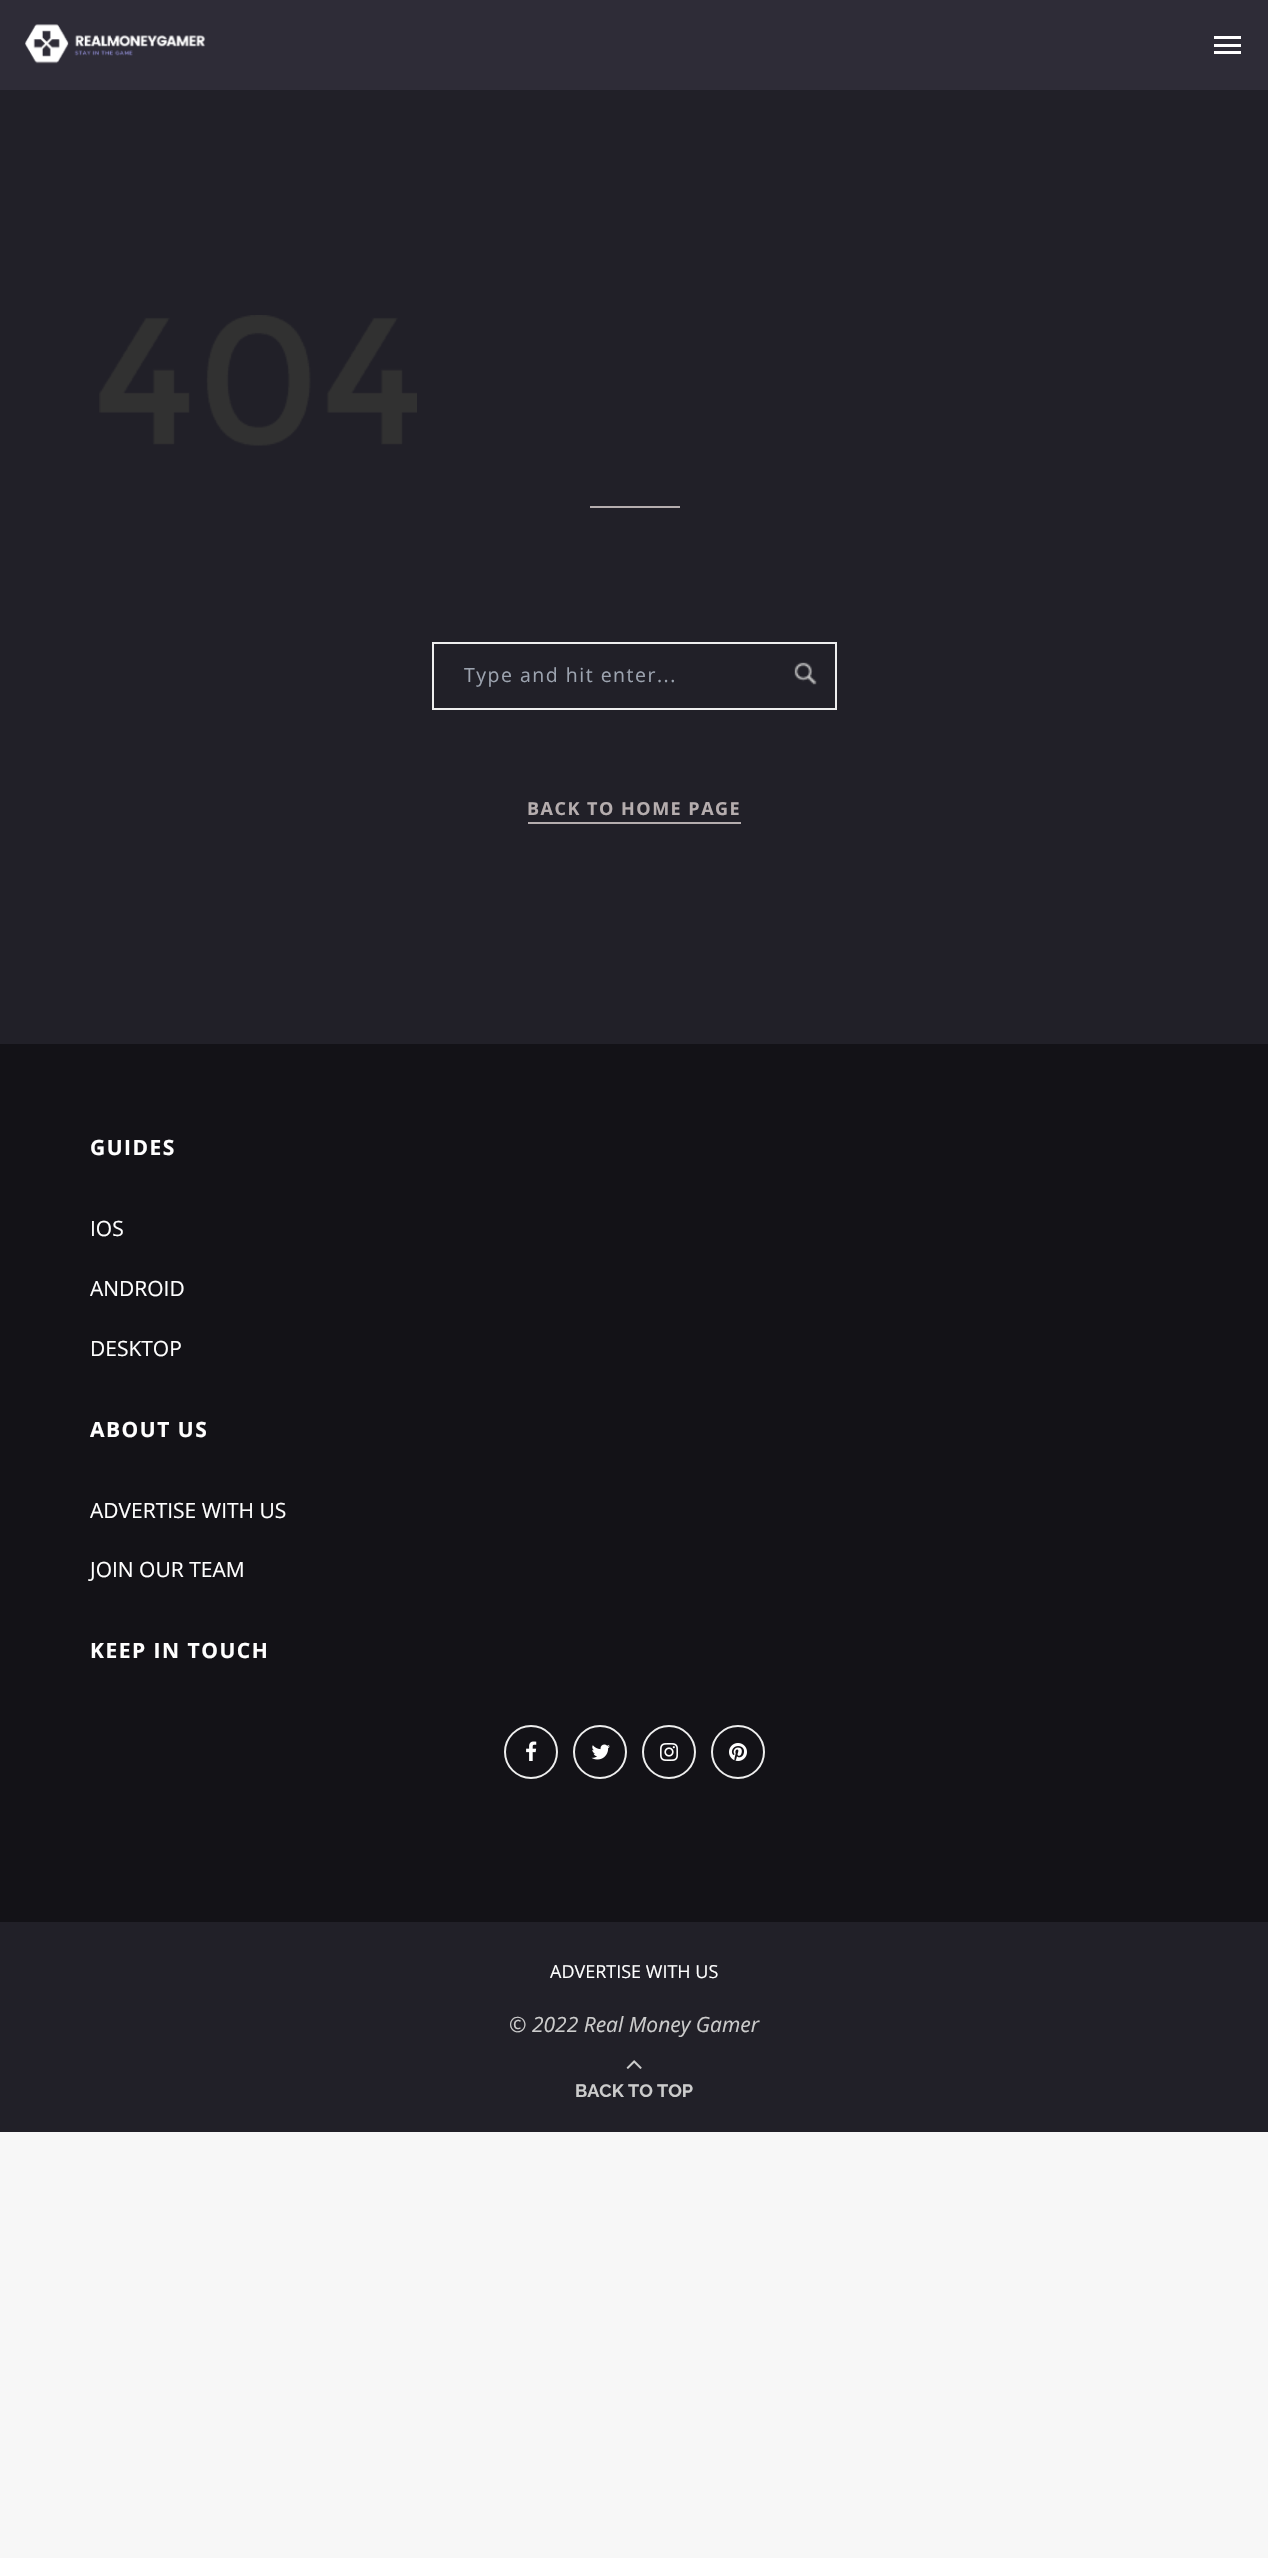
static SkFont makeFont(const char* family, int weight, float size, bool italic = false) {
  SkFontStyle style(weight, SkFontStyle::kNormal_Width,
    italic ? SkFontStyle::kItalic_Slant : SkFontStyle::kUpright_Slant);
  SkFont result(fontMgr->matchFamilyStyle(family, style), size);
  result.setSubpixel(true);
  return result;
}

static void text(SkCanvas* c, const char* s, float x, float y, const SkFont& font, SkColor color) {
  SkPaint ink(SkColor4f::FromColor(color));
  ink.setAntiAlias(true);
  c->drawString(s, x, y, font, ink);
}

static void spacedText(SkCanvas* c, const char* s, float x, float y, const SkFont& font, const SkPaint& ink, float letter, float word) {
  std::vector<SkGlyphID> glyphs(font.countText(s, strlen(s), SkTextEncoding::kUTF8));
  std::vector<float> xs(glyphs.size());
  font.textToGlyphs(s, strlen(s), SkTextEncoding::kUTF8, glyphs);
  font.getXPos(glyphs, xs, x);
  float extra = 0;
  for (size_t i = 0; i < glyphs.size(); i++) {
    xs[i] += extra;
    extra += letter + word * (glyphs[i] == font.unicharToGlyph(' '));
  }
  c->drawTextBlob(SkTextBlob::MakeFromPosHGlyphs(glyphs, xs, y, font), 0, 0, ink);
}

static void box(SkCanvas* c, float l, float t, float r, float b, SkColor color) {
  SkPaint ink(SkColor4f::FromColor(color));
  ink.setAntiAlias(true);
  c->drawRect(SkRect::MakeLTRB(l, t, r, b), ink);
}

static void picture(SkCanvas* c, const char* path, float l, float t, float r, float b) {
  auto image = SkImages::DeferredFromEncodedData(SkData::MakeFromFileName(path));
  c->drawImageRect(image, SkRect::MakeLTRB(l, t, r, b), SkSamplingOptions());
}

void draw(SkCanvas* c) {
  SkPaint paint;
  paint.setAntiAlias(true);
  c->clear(0xfff7f7f7);
  box(c, 0, 90, 1268, 2132, 0xff212028);
  box(c, 0, 0, 1268, 90, 0xff2e2c37);
  picture(c, "img_01.png", 25, 24, 206, 64);
  box(c, 1214, 36, 1241, 39, 0xffffffff);
  box(c, 1214, 51, 1241, 54, 0xffffffff);
  box(c, 1214, 44, 1241, 47, 0xffffffff);
  picture(c, "img_02.png", 99, 315, 417, 446);
  box(c, 590, 506, 680, 508, 0xffb5adae);
  picture(c, "img_03.png", 794, 662, 817, 685);
  paint.setStyle(SkPaint::kStroke_Style);
  paint.setStrokeWidth(2);
  paint.setColor(0xffeeeeee);
  c->drawRect(SkRect::MakeLTRB(433, 643, 836, 709), paint);
  SkFont face1 = makeFont("Open Sans", 400, 19.5f);
  paint.setStyle(SkPaint::kFill_Style);
  paint.setColor(0xff9ca3af);
  spacedText(c, "Type and hit enter...", 464, 682, face1, paint, 1.5f, 0);
  SkFont face2 = makeFont("Open Sans", 700, 18);
  paint.setColor(0xffb5adae);
  spacedText(c, "BACK TO HOME PAGE", 527, 815, face2, paint, 1.5f, 0);
  box(c, 528, 822, 741, 824, 0xffb5adae);
  box(c, 0, 1044, 1268, 1922, 0xff131217);
  SkFont face3 = makeFont("Open Sans", 700, 21);
  paint.setColor(0xffffffff);
  spacedText(c, "GUIDES", 90, 1155, face3, paint, 1.5f, 0);
  SkFont face4 = makeFont("Open Sans", 400, 21);
  text(c, "IOS", 90, 1236, face4, 0xffffffff);
  text(c, "ANDROID", 90, 1296, face4, 0xffffffff);
  text(c, "DESKTOP", 90, 1356, face4, 0xffffffff);
  spacedText(c, "ABOUT US", 90, 1437, face3, paint, 1.5f, 0);
  text(c, "ADVERTISE WITH US", 90, 1518, face4, 0xffffffff);
  text(c, "JOIN OUR TEAM", 90, 1577, face4, 0xffffffff);
  spacedText(c, "KEEP IN TOUCH", 90, 1658, face3, paint, 1.5f, 0);
  paint.setStyle(SkPaint::kStroke_Style);
  paint.setColor(0xffeeeeee);
  c->drawCircle(531, 1752, 26, paint);
  picture(c, "img_04.png", 526, 1741, 537, 1761);
  c->drawCircle(600, 1752, 26, paint);
  picture(c, "img_05.png", 591, 1744, 610, 1760);
  c->drawCircle(669, 1752, 26, paint);
  picture(c, "img_06.png", 660, 1743, 678, 1761);
  c->drawCircle(738, 1752, 26, paint);
  picture(c, "img_07.png", 729, 1743, 747, 1761);
  SkFont face5 = makeFont("Open Sans", 400, 18);
  text(c, "ADVERTISE WITH US", 550, 1978, face5, 0xffffffff);
  SkFont face6 = makeFont("Open Sans", 400, 21, true);
  text(c, "© 2022 Real Money Gamer", 509, 2032, face6, 0xffcccccc);
  picture(c, "img_08.png", 626, 2060, 642, 2069);
  SkFont face7 = makeFont("Raleway", 700, 18);
  text(c, "BACK TO TOP", 575, 2097, face7, 0xffcccccc);
}
